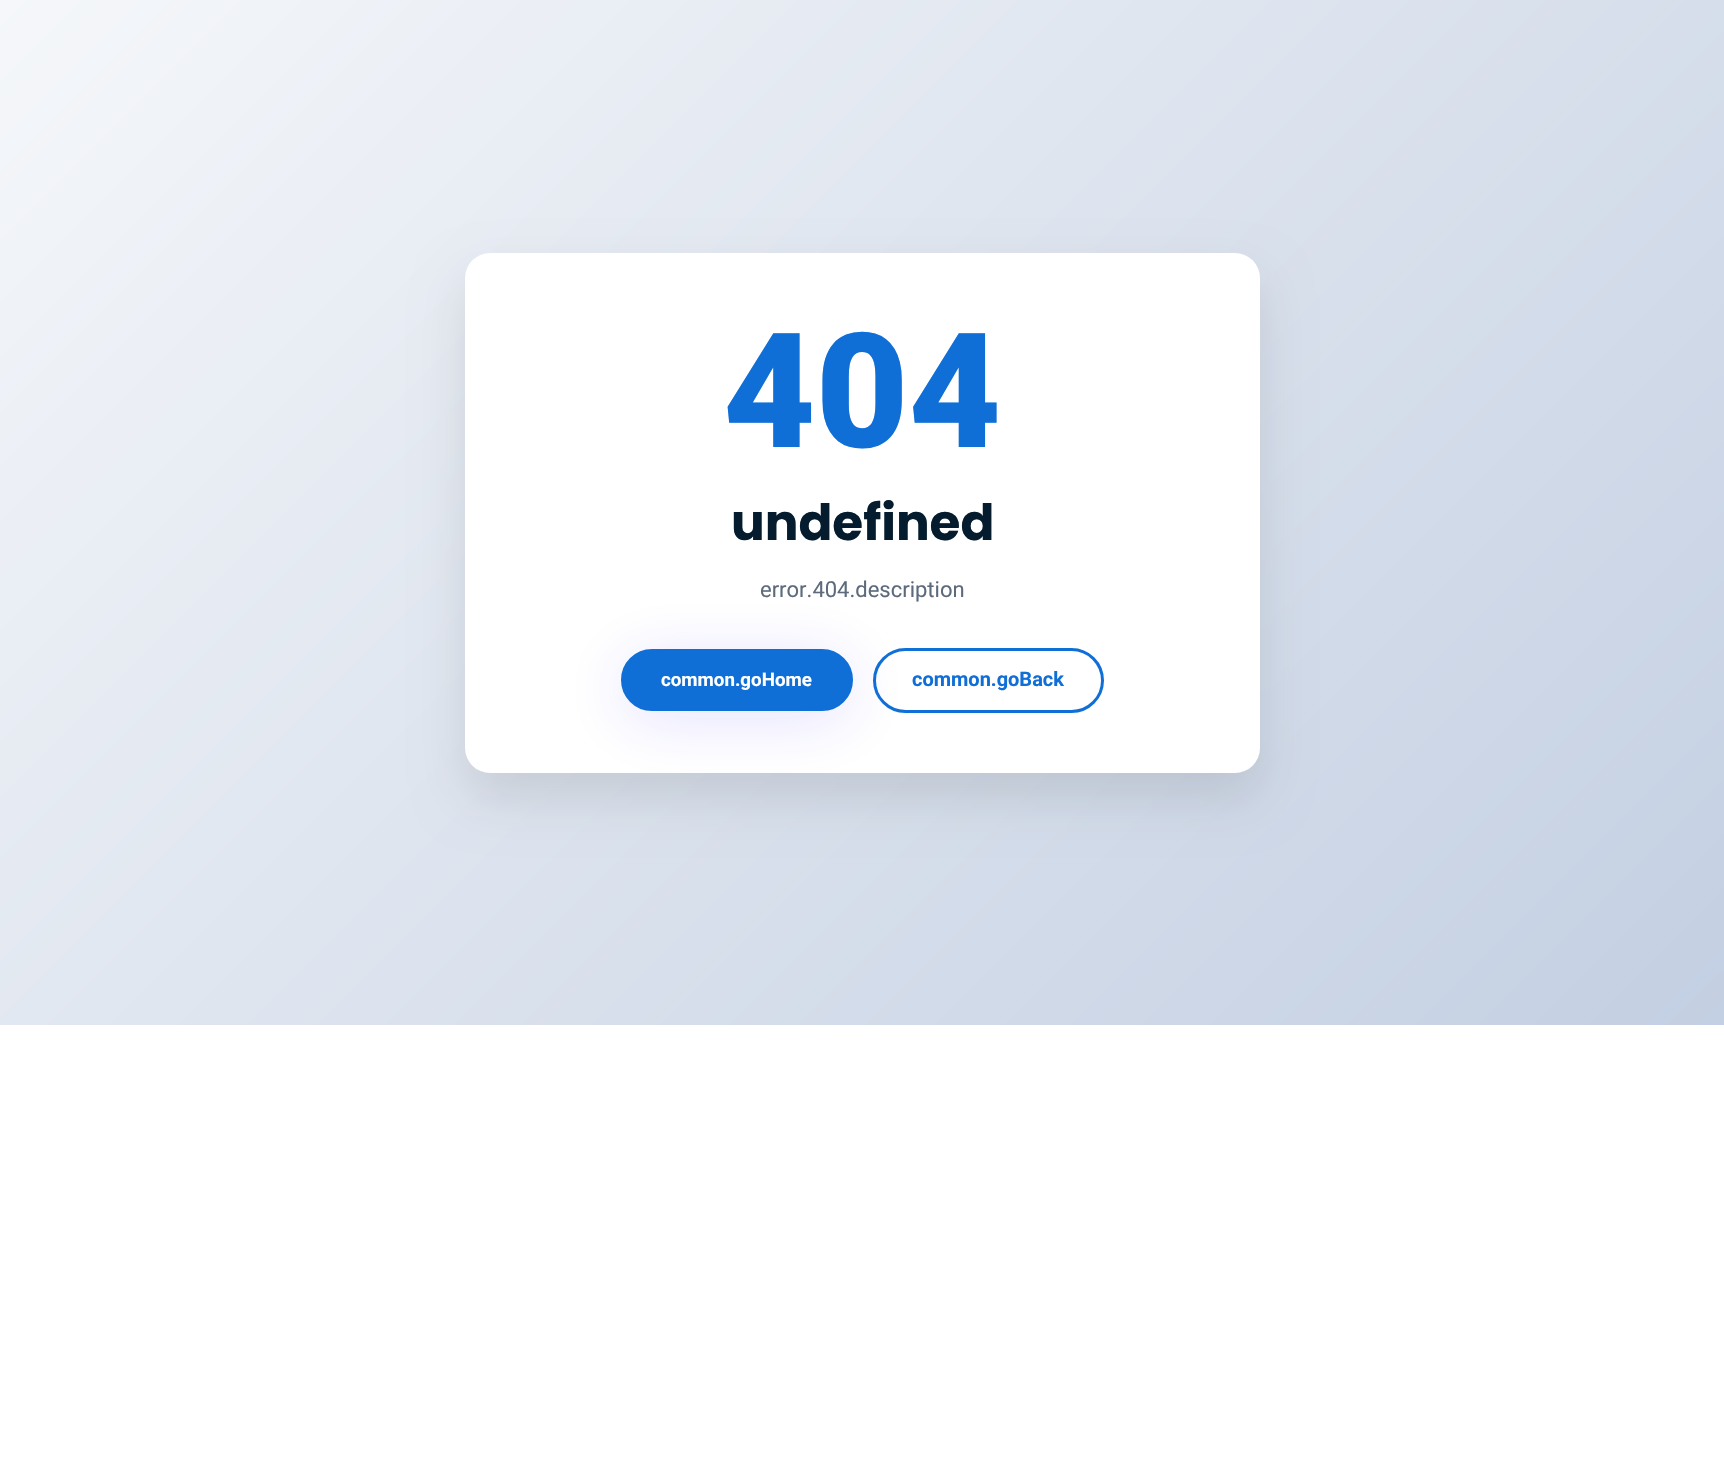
static SkFont makeFont(const char* family, int weight, float size, bool italic = false) {
  SkFontStyle style(weight, SkFontStyle::kNormal_Width,
    italic ? SkFontStyle::kItalic_Slant : SkFontStyle::kUpright_Slant);
  SkFont result(fontMgr->matchFamilyStyle(family, style), size);
  result.setSubpixel(true);
  return result;
}

static void text(SkCanvas* c, const char* s, float x, float y, const SkFont& font, SkColor color) {
  SkPaint ink(SkColor4f::FromColor(color));
  ink.setAntiAlias(true);
  c->drawString(s, x, y, font, ink);
}

static void roundBox(SkCanvas* c, float l, float t, float r, float b, float radius, SkColor color) {
  SkPaint ink(SkColor4f::FromColor(color));
  ink.setAntiAlias(true);
  c->drawRoundRect(SkRect::MakeLTRB(l, t, r, b), radius, radius, ink);
}

void draw(SkCanvas* c) {
  SkPaint paint;
  paint.setAntiAlias(true);
  c->clear(0xffffffff);
  {
    const SkColor colors[] = {0xfff5f7fa, 0xffc3cfe2};
    const float stops[] = {0, 1};
    const SkPoint ends[] = {{175, -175}, {1550, 1200}};
    paint.setShader(SkGradientShader::MakeLinear(ends, colors, stops, 2, SkTileMode::kClamp));
    paint.setAlpha(255);
  }
  c->drawRect(SkRect::MakeLTRB(0, 0, 1724, 1025), paint);
  paint.setShader(nullptr);
  paint.setColor(0x1a000000);
  paint.setMaskFilter(SkMaskFilter::MakeBlur(kNormal_SkBlurStyle, 25));
  c->drawRoundRect(SkRect::MakeLTRB(465, 278, 1260, 798), 25, 25, paint);
  paint.setMaskFilter(nullptr);
  roundBox(c, 465, 253, 1260, 773, 25, 0xffffffff);
  SkFont face1 = makeFont("Roboto", 900, 160);
  text(c, "404", 723, 447, face1, 0xff0f6fd7);
  SkFont face2 = makeFont("Poppins", 700, 50);
  text(c, "undefined", 731, 540, face2, 0xff041c2d);
  SkFont face3 = makeFont("Roboto", 400, 22);
  text(c, "error.404.description", 760, 597, face3, 0xff5c6a7c);
  paint.setStyle(SkPaint::kStroke_Style);
  paint.setStrokeWidth(3);
  paint.setColor(0xff0f6fd7);
  c->drawRoundRect(SkRect::MakeLTRB(874.5f, 649.5f, 1102.5f, 711.5f), 31, 31, paint);
  paint.setStyle(SkPaint::kFill_Style);
  paint.setColor(0x1f1f12fd);
  paint.setMaskFilter(SkMaskFilter::MakeBlur(kNormal_SkBlurStyle, 32));
  c->drawRoundRect(SkRect::MakeLTRB(621, 658, 853, 720), 31, 31, paint);
  paint.setMaskFilter(nullptr);
  paint.setColor(0xff0f6fd7);
  c->drawRoundRect(SkRect::MakeLTRB(622.5f, 650.5f, 851.5f, 709.5f), 29.5f, 29.5f, paint);
  paint.setStyle(SkPaint::kStroke_Style);
  c->drawRoundRect(SkRect::MakeLTRB(622.5f, 650.5f, 851.5f, 709.5f), 29.5f, 29.5f, paint);
  SkFont face4 = makeFont("Roboto", 700, 18.75f);
  text(c, "common.goHome", 661, 686, face4, 0xffffffff);
  SkFont face5 = makeFont("Roboto", 700, 20);
  text(c, "common.goBack", 912, 686, face5, 0xff0f6fd7);
}
